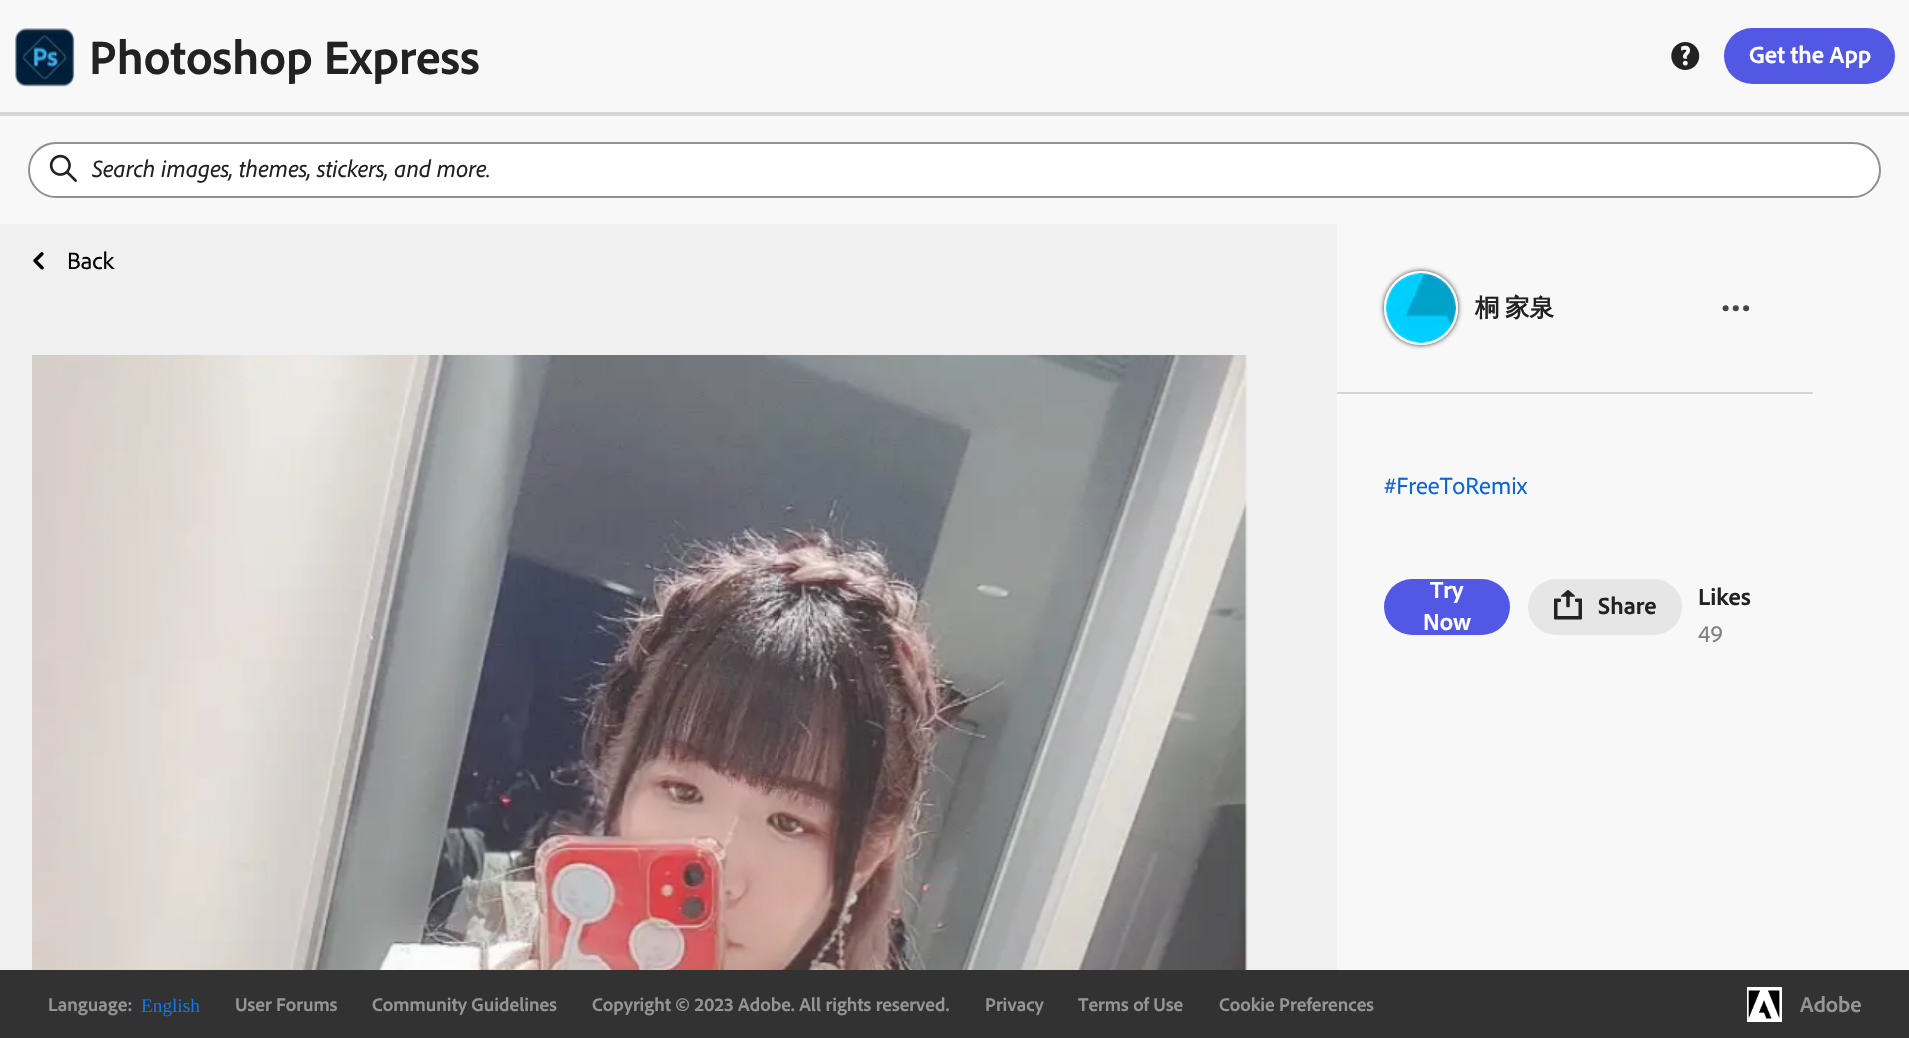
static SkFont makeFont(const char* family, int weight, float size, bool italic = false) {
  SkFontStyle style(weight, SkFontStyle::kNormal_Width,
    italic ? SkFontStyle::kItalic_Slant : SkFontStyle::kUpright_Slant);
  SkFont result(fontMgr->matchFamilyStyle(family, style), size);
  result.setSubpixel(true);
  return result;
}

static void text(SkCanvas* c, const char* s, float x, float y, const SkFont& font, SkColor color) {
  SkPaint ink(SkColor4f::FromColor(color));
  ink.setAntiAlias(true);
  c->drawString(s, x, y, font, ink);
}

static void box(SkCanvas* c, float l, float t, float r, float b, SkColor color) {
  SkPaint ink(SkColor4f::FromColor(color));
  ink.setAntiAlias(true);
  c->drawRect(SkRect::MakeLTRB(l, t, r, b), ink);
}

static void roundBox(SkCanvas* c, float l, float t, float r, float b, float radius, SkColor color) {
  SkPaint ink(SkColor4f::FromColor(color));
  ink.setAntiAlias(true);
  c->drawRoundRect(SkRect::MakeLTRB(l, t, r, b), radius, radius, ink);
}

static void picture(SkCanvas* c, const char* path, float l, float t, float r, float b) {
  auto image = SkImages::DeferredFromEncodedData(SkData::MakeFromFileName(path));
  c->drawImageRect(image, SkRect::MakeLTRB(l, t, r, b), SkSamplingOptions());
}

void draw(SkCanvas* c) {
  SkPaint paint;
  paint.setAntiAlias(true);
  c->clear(0xfff8f8f8);
  box(c, 0, 112, 1909, 116, 0xffd5d5d5);
  picture(c, "img_01.png", 15, 28, 75, 87);
  SkFont face1 = makeFont("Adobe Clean", 700, 49);
  text(c, "Photoshop Express", 89, 74, face1, 0xff222222);
  picture(c, "img_02.png", 1671, 42, 1700, 70);
  roundBox(c, 1724, 28, 1895, 84, 28, 0xff5258e4);
  SkFont face2 = makeFont("Adobe Clean", 700, 24.5f);
  text(c, "Get the App", 1749, 63, face2, 0xffffffff);
  paint.setColor(0xffffffff);
  c->drawRoundRect(SkRect::MakeLTRB(29, 143, 1880, 197), 27, 27, paint);
  paint.setStyle(SkPaint::kStroke_Style);
  paint.setStrokeWidth(2);
  paint.setColor(0xff909090);
  c->drawRoundRect(SkRect::MakeLTRB(29, 143, 1880, 197), 27, 27, paint);
  picture(c, "img_03.png", 49, 154, 77, 182);
  SkFont face3 = makeFont("Adobe Clean", 400, 24.5f, true);
  text(c, "Search images, themes, stickers, and more.", 92, 177, face3, 0xff222222);
  box(c, 0, 224, 1337, 970, 0xfff0f0f0);
  picture(c, "img_04.png", 33, 252, 44, 270);
  SkFont face4 = makeFont("Adobe Clean", 400, 24.5f);
  text(c, "Back", 67, 269, face4, 0xff000000);
  picture(c, "img_05.png", 32, 355, 1248, 970);
  c->save();
  c->clipPath(SkPathBuilder(SkPathFillType::kEvenOdd).moveTo(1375, 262).lineTo(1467, 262).lineTo(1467, 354).lineTo(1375, 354).close().moveTo(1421, 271).cubicTo(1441.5f, 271, 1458, 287.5f, 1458, 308).cubicTo(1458, 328.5f, 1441.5f, 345, 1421, 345).cubicTo(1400.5f, 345, 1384, 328.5f, 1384, 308).cubicTo(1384, 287.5f, 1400.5f, 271, 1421, 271).close().detach(), true);
  paint.setStyle(SkPaint::kFill_Style);
  paint.setColor(0xff323232);
  paint.setMaskFilter(SkMaskFilter::MakeBlur(kNormal_SkBlurStyle, 2.5f));
  c->drawRoundRect(SkRect::MakeLTRB(1384, 271, 1458, 345), 37, 37, paint);
  paint.setMaskFilter(nullptr);
  c->restore();
  paint.setStyle(SkPaint::kStroke_Style);
  paint.setColor(0xfffafafa);
  c->drawCircle(1421, 308, 36, paint);
  picture(c, "img_06.png", 1386, 273, 1456, 343);
  SkFont face5 = makeFont("WenQuanYi Zen Hei", 700, 24.5f);
  text(c, "桐", 1475, 316, face5, 0xff222222);
  text(c, "家泉", 1505, 316, face5, 0xff222222);
  paint.setStyle(SkPaint::kFill_Style);
  paint.setColor(0xff464646);
  c->drawCircle(1735.8f, 308.2f, 3, paint);
  c->drawCircle(1746.1f, 308.2f, 3, paint);
  c->drawCircle(1725.6f, 308.2f, 3, paint);
  roundBox(c, 1337, 392, 1813, 394, 1, 0xffd5d5d5);
  text(c, "#FreeToRemix", 1384, 494, face4, 0xff0d66d0);
  roundBox(c, 1384, 579, 1510, 635, 28, 0xff5258e4);
  text(c, "Try", 1430, 598, face2, 0xffffffff);
  text(c, "Now", 1423, 630, face2, 0xffffffff);
  roundBox(c, 1528, 579, 1682, 635, 28, 0xffe6e6e6);
  picture(c, "img_07.png", 1554, 590, 1582, 620);
  text(c, "Share", 1598, 614, face2, 0xff222222);
  text(c, "Likes", 1698, 605, face2, 0xff222222);
  text(c, "49", 1698, 642, face4, 0xff808080);
  box(c, 0, 970, 1909, 1038, 0xff323232);
  SkFont face6 = makeFont("Adobe Clean", 700, 19.25f);
  text(c, "Language:", 48, 1011, face6, 0xff959595);
  SkFont face7 = makeFont("Liberation Serif", 400, 19.25f);
  text(c, "English", 141, 1012, face7, 0xff1473e6);
  text(c, "User Forums", 235, 1011, face6, 0xff959595);
  text(c, "Community Guidelines", 372, 1011, face6, 0xff959595);
  text(c, "Copyright © 2023 Adobe. All rights reserved.", 592, 1011, face6, 0xff959595);
  text(c, "Privacy", 985, 1011, face6, 0xff959595);
  text(c, "Terms of Use", 1078, 1011, face6, 0xff959595);
  text(c, "Cookie Preferences", 1219, 1011, face6, 0xff959595);
  box(c, 1747, 987, 1782, 1022, 0xffffffff);
  picture(c, "img_08.png", 1748, 990, 1780, 1019);
  SkFont face8 = makeFont("Adobe Clean", 700, 22.5f);
  text(c, "Adobe", 1800, 1012, face8, 0xff959595);
}
